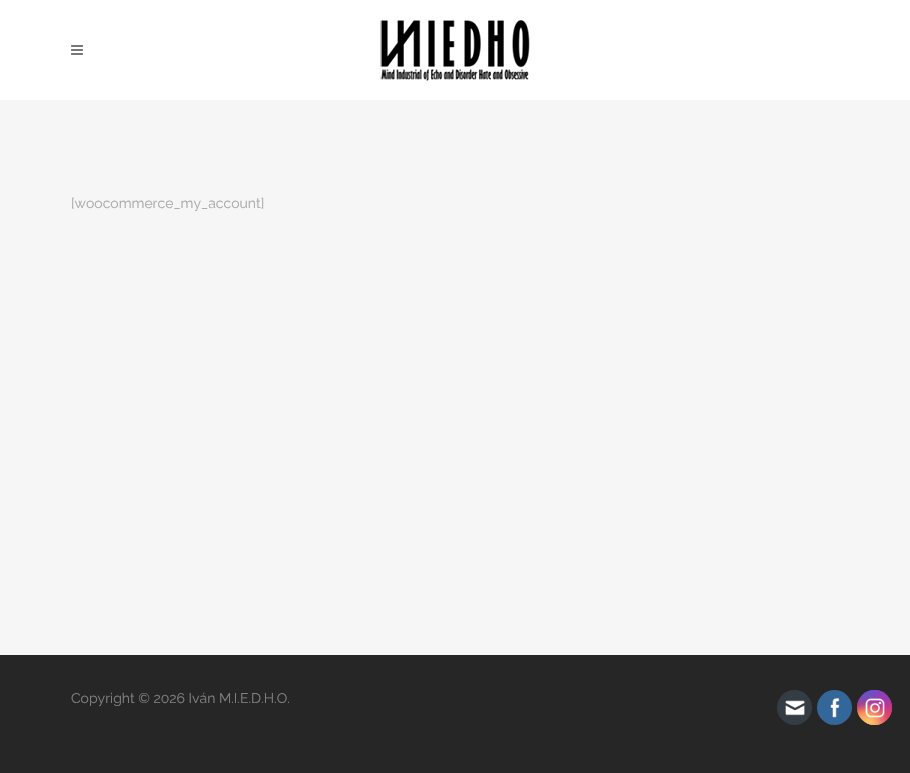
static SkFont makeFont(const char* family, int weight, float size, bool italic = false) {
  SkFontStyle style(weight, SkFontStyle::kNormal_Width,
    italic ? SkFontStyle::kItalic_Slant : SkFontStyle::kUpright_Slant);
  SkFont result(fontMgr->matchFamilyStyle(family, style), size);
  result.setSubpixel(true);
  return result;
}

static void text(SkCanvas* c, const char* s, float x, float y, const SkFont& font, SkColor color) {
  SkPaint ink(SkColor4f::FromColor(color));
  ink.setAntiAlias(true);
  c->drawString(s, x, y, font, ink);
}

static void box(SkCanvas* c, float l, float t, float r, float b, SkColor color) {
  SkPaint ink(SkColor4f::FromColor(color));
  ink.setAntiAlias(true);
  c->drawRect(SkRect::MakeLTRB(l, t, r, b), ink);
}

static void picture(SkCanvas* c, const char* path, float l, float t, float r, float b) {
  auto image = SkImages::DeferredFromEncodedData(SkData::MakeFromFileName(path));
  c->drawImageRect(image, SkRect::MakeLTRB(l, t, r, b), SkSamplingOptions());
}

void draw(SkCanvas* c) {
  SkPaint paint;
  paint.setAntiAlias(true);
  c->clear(0xfff6f6f6);
  box(c, 0, 0, 910, 100, 0xffffffff);
  picture(c, "img_01.png", 71, 45, 83, 55);
  picture(c, "img_02.png", 380, 20, 530, 81);
  SkFont face1 = makeFont("Raleway", 400, 14);
  text(c, "[woocommerce_my_account]", 71, 208, face1, 0xffa8a8a8);
  box(c, 0, 655, 910, 773, 0xff262626);
  text(c, "Copyright © 2026 Iván M.I.E.D.H.O.", 71, 703, face1, 0xff818181);
  paint.setColor(0xff343d44);
  c->drawCircle(794.5f, 707.5f, 17.5f, paint);
  picture(c, "img_03.png", 785, 700, 805, 716);
  paint.setColor(0xff336699);
  c->drawCircle(834.5f, 707.5f, 17.5f, paint);
  picture(c, "img_04.png", 830, 698, 840, 718);
  {
    const SkColor colors[] = {0xff6559ca, 0xffbc318f, 0xffe33f5f, 0xfff77638, 0xfffec66d};
    const float stops[] = {0, 0.3f, 0.5f, 0.7f, 1};
    const SkPoint ends[] = {{875, 690}, {875, 725}};
    paint.setShader(SkGradientShader::MakeLinear(ends, colors, stops, 5, SkTileMode::kClamp));
    paint.setAlpha(255);
  }
  c->drawCircle(874.5f, 707.5f, 17.5f, paint);
  {
    const SkColor colors[] = {0xffd9317a, 0x00d9317a};
    const float stops[] = {0, 1};
    paint.setShader(SkGradientShader::MakeRadial({892, 725}, 49, colors, stops, 2, SkTileMode::kClamp));
    paint.setAlpha(255);
  }
  c->drawCircle(874.5f, 707.5f, 17.5f, paint);
  {
    const SkColor colors[] = {0xff893dc2, 0x00893dc2};
    const float stops[] = {0, 0.5f};
    SkMatrix m = SkMatrix::Translate(878, 683).preScale(30, 59);
    paint.setShader(SkGradientShader::MakeRadial({0, 0}, 1, colors, stops, 2, SkTileMode::kClamp, 0, &m));
    paint.setAlpha(255);
  }
  c->drawCircle(874.5f, 707.5f, 17.5f, paint);
  {
    const SkColor colors[] = {0xff893dc2, 0x00893dc2};
    const float stops[] = {0, 0.5f};
    paint.setShader(SkGradientShader::MakeRadial({892, 690}, 49, colors, stops, 2, SkTileMode::kClamp));
    paint.setAlpha(255);
  }
  c->drawCircle(874.5f, 707.5f, 17.5f, paint);
  {
    const SkColor colors[] = {0xff5258cf, 0x005258cf};
    const float stops[] = {0, 0.5f};
    SkMatrix m = SkMatrix::Translate(864, 673).preScale(40, 74);
    paint.setShader(SkGradientShader::MakeRadial({0, 0}, 1, colors, stops, 2, SkTileMode::kClamp, 0, &m));
    paint.setAlpha(255);
  }
  c->drawCircle(874.5f, 707.5f, 17.5f, paint);
  {
    const SkColor colors[] = {0xff5258cf, 0x005258cf};
    const float stops[] = {0, 0.5f};
    SkMatrix m = SkMatrix::Translate(857, 681).preScale(49, 62);
    paint.setShader(SkGradientShader::MakeRadial({0, 0}, 1, colors, stops, 2, SkTileMode::kClamp, 0, &m));
    paint.setAlpha(255);
  }
  c->drawCircle(874.5f, 707.5f, 17.5f, paint);
  {
    const SkColor colors[] = {0xfffec564, 0x00fec564};
    const float stops[] = {0, 0.5f};
    paint.setShader(SkGradientShader::MakeRadial({857, 739}, 60, colors, stops, 2, SkTileMode::kClamp));
    paint.setAlpha(255);
  }
  c->drawCircle(874.5f, 707.5f, 17.5f, paint);
  {
    const SkColor colors[] = {0xfffec564, 0x00fec564};
    const float stops[] = {0, 0.5f};
    paint.setShader(SkGradientShader::MakeRadial({869, 722}, 39, colors, stops, 2, SkTileMode::kClamp));
    paint.setAlpha(255);
  }
  c->drawCircle(874.5f, 707.5f, 17.5f, paint);
  picture(c, "img_05.png", 865, 698, 885, 718);
}
